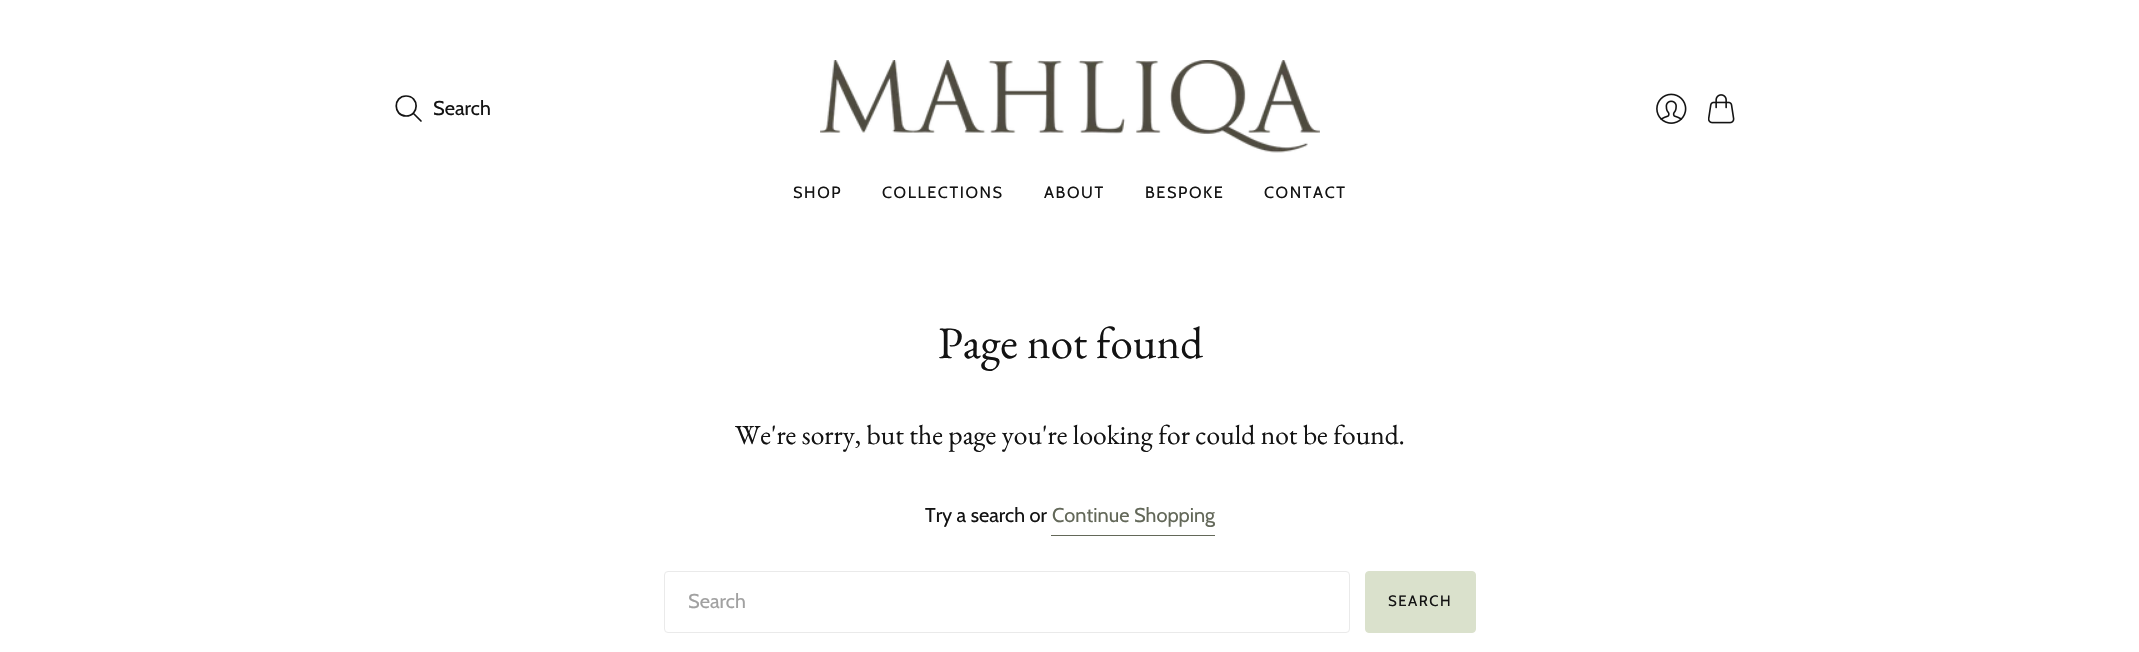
static SkFont makeFont(const char* family, int weight, float size, bool italic = false) {
  SkFontStyle style(weight, SkFontStyle::kNormal_Width,
    italic ? SkFontStyle::kItalic_Slant : SkFontStyle::kUpright_Slant);
  SkFont result(fontMgr->matchFamilyStyle(family, style), size);
  result.setSubpixel(true);
  return result;
}

static void text(SkCanvas* c, const char* s, float x, float y, const SkFont& font, SkColor color) {
  SkPaint ink(SkColor4f::FromColor(color));
  ink.setAntiAlias(true);
  c->drawString(s, x, y, font, ink);
}

static void spacedText(SkCanvas* c, const char* s, float x, float y, const SkFont& font, const SkPaint& ink, float letter, float word) {
  std::vector<SkGlyphID> glyphs(font.countText(s, strlen(s), SkTextEncoding::kUTF8));
  std::vector<float> xs(glyphs.size());
  font.textToGlyphs(s, strlen(s), SkTextEncoding::kUTF8, glyphs);
  font.getXPos(glyphs, xs, x);
  float extra = 0;
  for (size_t i = 0; i < glyphs.size(); i++) {
    xs[i] += extra;
    extra += letter + word * (glyphs[i] == font.unicharToGlyph(' '));
  }
  c->drawTextBlob(SkTextBlob::MakeFromPosHGlyphs(glyphs, xs, y, font), 0, 0, ink);
}

static void box(SkCanvas* c, float l, float t, float r, float b, SkColor color) {
  SkPaint ink(SkColor4f::FromColor(color));
  ink.setAntiAlias(true);
  c->drawRect(SkRect::MakeLTRB(l, t, r, b), ink);
}

static void picture(SkCanvas* c, const char* path, float l, float t, float r, float b) {
  auto image = SkImages::DeferredFromEncodedData(SkData::MakeFromFileName(path));
  c->drawImageRect(image, SkRect::MakeLTRB(l, t, r, b), SkSamplingOptions());
}

void draw(SkCanvas* c) {
  SkPaint paint;
  paint.setAntiAlias(true);
  c->clear(0xffffffff);
  paint.setStyle(SkPaint::kStroke_Style);
  paint.setStrokeWidth(1.7f);
  paint.setStrokeCap(SkPaint::kRound_Cap);
  paint.setStrokeJoin(SkPaint::kRound_Join);
  paint.setColor(0xff131313);
  c->drawPath(SkPathBuilder().moveTo(406, 116).cubicTo(419.5f, 116, 419.5f, 96, 406, 96).cubicTo(393, 96, 393, 116, 406, 116).close().moveTo(421, 121).lineTo(413.5f, 113.5f).detach(), paint);
  SkFont face1 = makeFont("Cabin", 400, 20);
  text(c, "Search", 433, 115, face1, 0xff131313);
  picture(c, "img_01.png", 1656, 93, 1687, 124);
  picture(c, "img_02.png", 1708, 94, 1735, 124);
  picture(c, "img_03.png", 820, 60, 1320, 153);
  SkFont face2 = makeFont("Cabin", 400, 16.25f);
  paint.setStyle(SkPaint::kFill_Style);
  spacedText(c, "SHOP", 793, 198, face2, paint, 1.6f, 0);
  spacedText(c, "COLLECTIONS", 882, 198, face2, paint, 1.6f, 0);
  spacedText(c, "ABOUT", 1044, 198, face2, paint, 1.6f, 0);
  spacedText(c, "BESPOKE", 1145, 198, face2, paint, 1.6f, 0);
  spacedText(c, "CONTACT", 1264, 198, face2, paint, 1.6f, 0);
  SkFont face3 = makeFont("EB Garamond", 400, 45);
  text(c, "Page not found", 938, 358, face3, 0xff131313);
  SkFont face4 = makeFont("EB Garamond", 400, 27.5f);
  text(c, "We're sorry, but the page you're looking for could not be found.", 735, 444, face4, 0xff131313);
  text(c, "Try a search or", 925, 522, face1, 0xff131313);
  text(c, "Continue Shopping", 1052, 522, face1, 0xff636859);
  box(c, 1051, 535, 1215, 536, 0xff636859);
  paint.setStyle(SkPaint::kStroke_Style);
  paint.setStrokeWidth(1);
  paint.setStrokeCap(SkPaint::kButt_Cap);
  paint.setStrokeJoin(SkPaint::kMiter_Join);
  paint.setColor(0xffeaeaea);
  c->drawRoundRect(SkRect::MakeLTRB(664.5f, 571.5f, 1349.5f, 632.5f), 3.5f, 3.5f, paint);
  text(c, "Search", 688, 608, face1, 0xffa1a1a1);
  paint.setStyle(SkPaint::kFill_Style);
  paint.setColor(0xffdae1cc);
  c->drawRoundRect(SkRect::MakeLTRB(1365.5f, 571.5f, 1475.5f, 632.5f), 3.5f, 3.5f, paint);
  paint.setStyle(SkPaint::kStroke_Style);
  c->drawRoundRect(SkRect::MakeLTRB(1365.5f, 571.5f, 1475.5f, 632.5f), 3.5f, 3.5f, paint);
  SkFont face5 = makeFont("Cabin", 400, 15);
  paint.setStyle(SkPaint::kFill_Style);
  paint.setColor(0xff131313);
  spacedText(c, "SEARCH", 1388, 606, face5, paint, 1.5f, 0);
}
